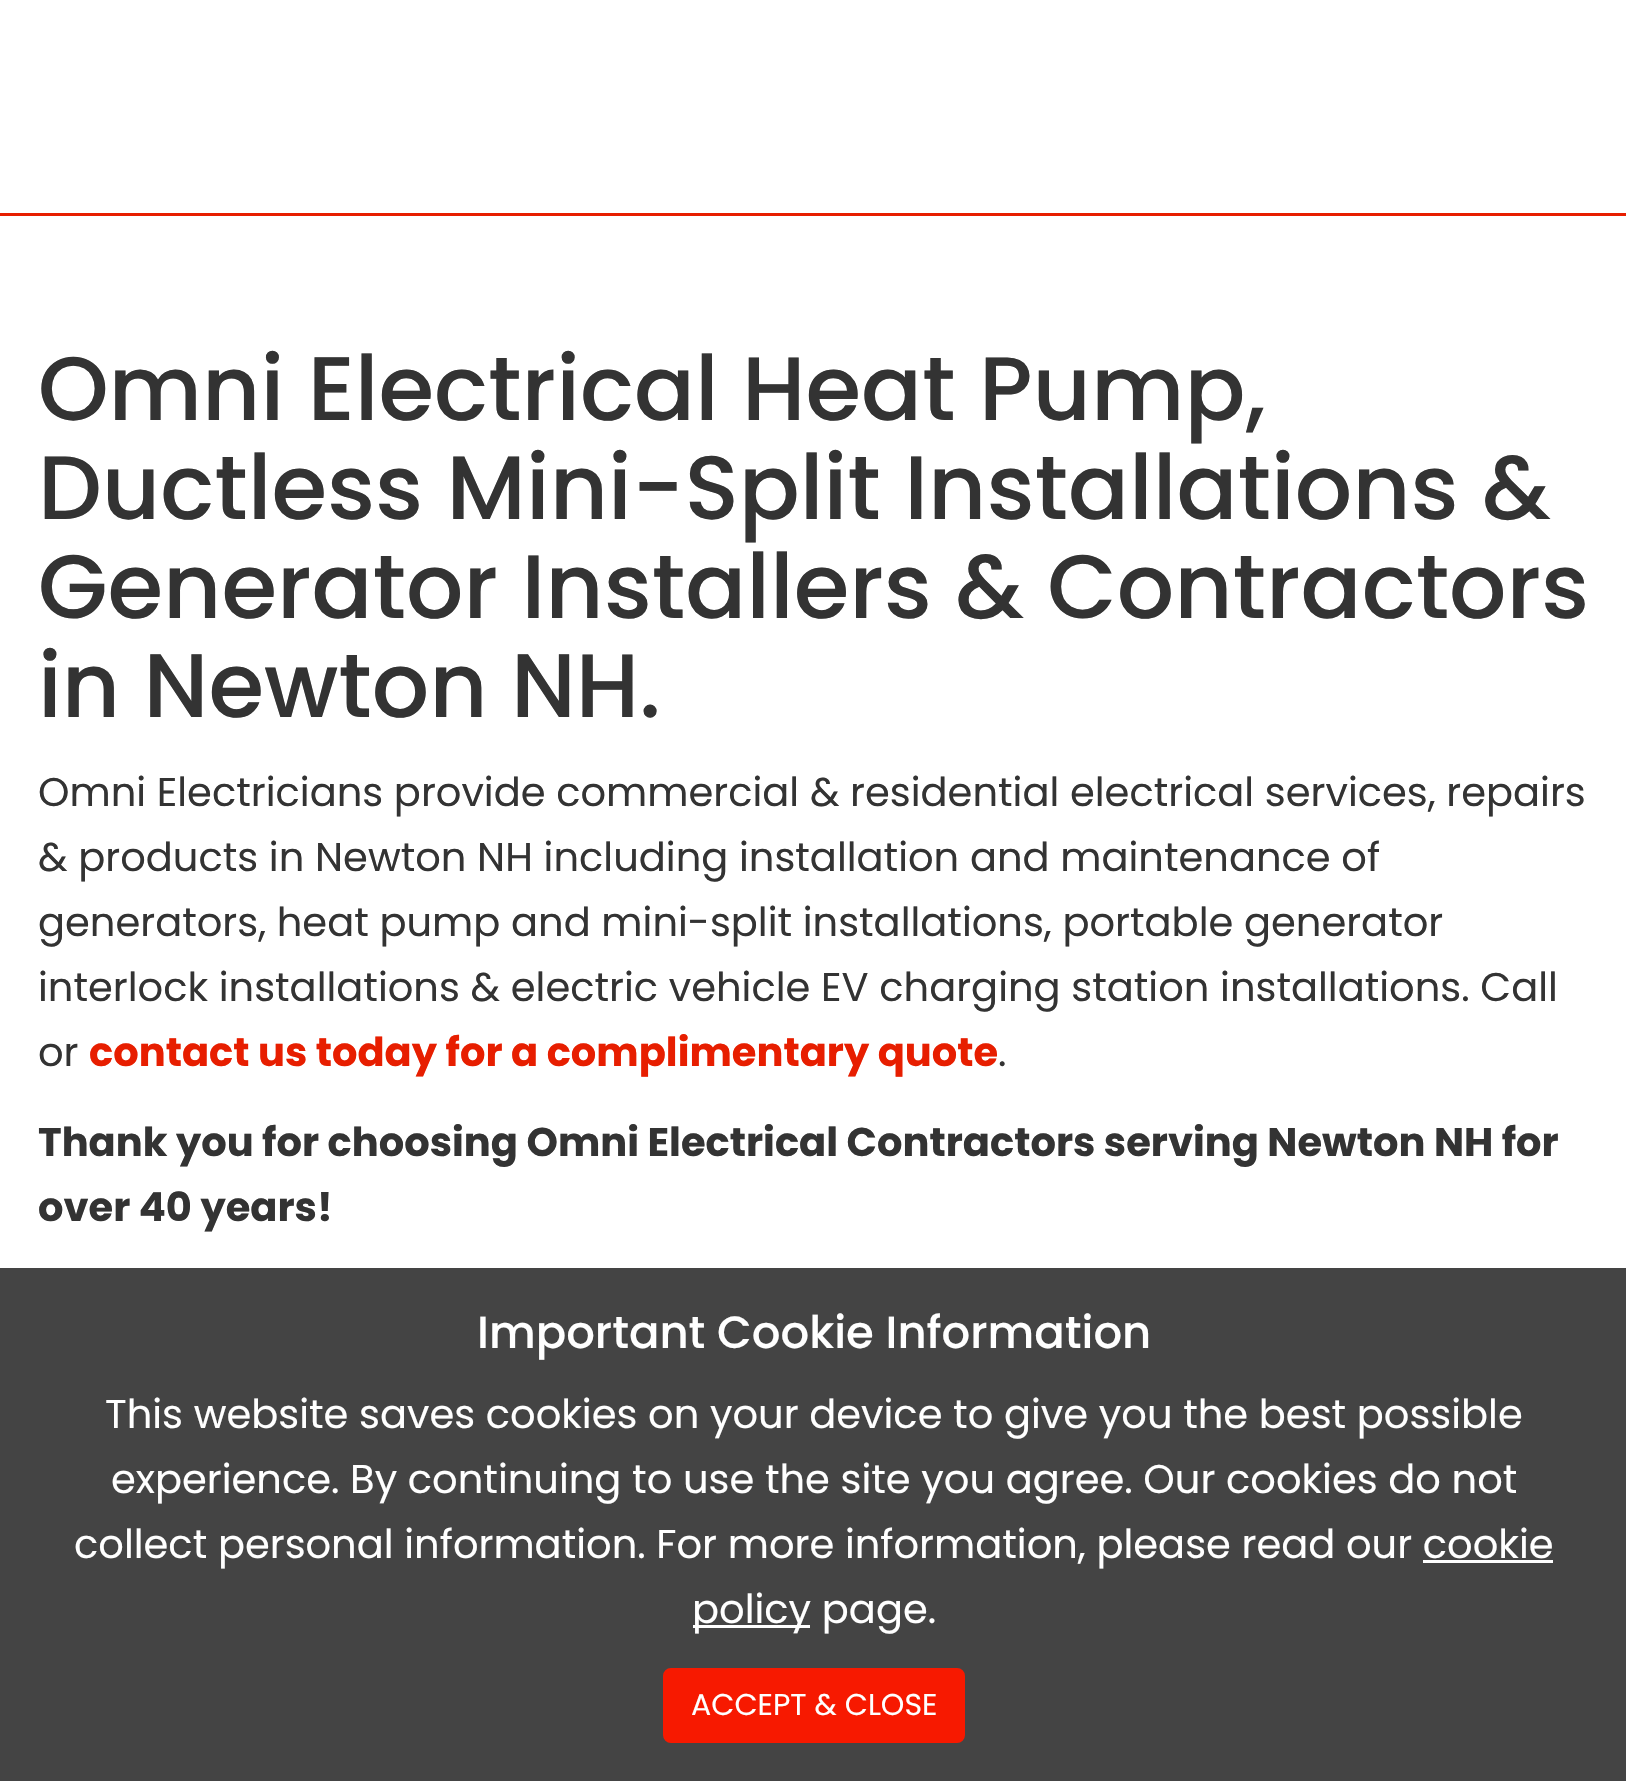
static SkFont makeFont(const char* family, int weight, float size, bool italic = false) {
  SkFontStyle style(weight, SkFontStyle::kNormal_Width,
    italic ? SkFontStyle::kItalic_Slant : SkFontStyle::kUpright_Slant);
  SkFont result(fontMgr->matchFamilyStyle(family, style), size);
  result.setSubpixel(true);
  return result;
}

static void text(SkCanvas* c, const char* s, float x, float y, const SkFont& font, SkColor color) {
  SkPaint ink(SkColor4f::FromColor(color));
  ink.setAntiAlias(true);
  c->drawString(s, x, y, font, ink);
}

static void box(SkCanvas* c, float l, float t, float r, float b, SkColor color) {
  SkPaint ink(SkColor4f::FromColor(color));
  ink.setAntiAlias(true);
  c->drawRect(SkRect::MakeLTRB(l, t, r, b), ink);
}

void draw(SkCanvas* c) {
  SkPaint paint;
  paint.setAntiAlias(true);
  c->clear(0xffffffff);
  box(c, 0, 213, 1626, 216, 0xffe71e00);
  SkFont face1 = makeFont("Poppins", 500, 90);
  text(c, "Omni Electrical Heat Pump,", 38, 420, face1, 0xff333333);
  text(c, "Ductless Mini-Split Installations &", 38, 519, face1, 0xff333333);
  text(c, "Generator Installers & Contractors", 38, 618, face1, 0xff333333);
  text(c, "in Newton NH.", 38, 717, face1, 0xff333333);
  SkFont face2 = makeFont("Poppins", 400, 40);
  text(c, "Omni Electricians provide commercial & residential electrical services, repairs", 38, 806, face2, 0xff333333);
  text(c, "& products in Newton NH including installation and maintenance of", 38, 871, face2, 0xff333333);
  text(c, "generators, heat pump and mini-split installations, portable generator", 38, 936, face2, 0xff333333);
  text(c, "interlock installations & electric vehicle EV charging station installations. Call", 38, 1001, face2, 0xff333333);
  text(c, "or", 38, 1066, face2, 0xff333333);
  SkFont face3 = makeFont("Poppins", 700, 40);
  text(c, "contact us today for a complimentary quote", 89, 1066, face3, 0xffe71e00);
  text(c, ".", 998, 1066, face2, 0xff333333);
  text(c, "Thank you for choosing Omni Electrical Contractors serving Newton NH for", 38, 1156, face3, 0xff333333);
  text(c, "over 40 years!", 38, 1221, face3, 0xff333333);
  box(c, 0, 1268, 1626, 1781, 0xff444444);
  SkFont face4 = makeFont("Poppins", 500, 45);
  text(c, "Important Cookie Information", 477, 1348, face4, 0xffffffff);
  text(c, "This website saves cookies on your device to give you the best possible", 105, 1428, face2, 0xffffffff);
  text(c, "experience. By continuing to use the site you agree. Our cookies do not", 111, 1493, face2, 0xffffffff);
  text(c, "collect personal information. For more information, please read our cookie", 74, 1558, face2, 0xffffffff);
  box(c, 693, 1625, 810, 1628, 0xffffffff);
  text(c, "policy page.", 692, 1623, face2, 0xffffffff);
  box(c, 1423, 1560, 1553, 1563, 0xffffffff);
  paint.setColor(0xfff71900);
  c->drawRoundRect(SkRect::MakeLTRB(664.5f, 1669.5f, 963.5f, 1741.5f), 6.5f, 6.5f, paint);
  paint.setStyle(SkPaint::kStroke_Style);
  paint.setStrokeWidth(3);
  c->drawRoundRect(SkRect::MakeLTRB(664.5f, 1669.5f, 963.5f, 1741.5f), 6.5f, 6.5f, paint);
  SkFont face5 = makeFont("Poppins", 400, 30);
  text(c, "ACCEPT & CLOSE", 691, 1715, face5, 0xffffffff);
}
